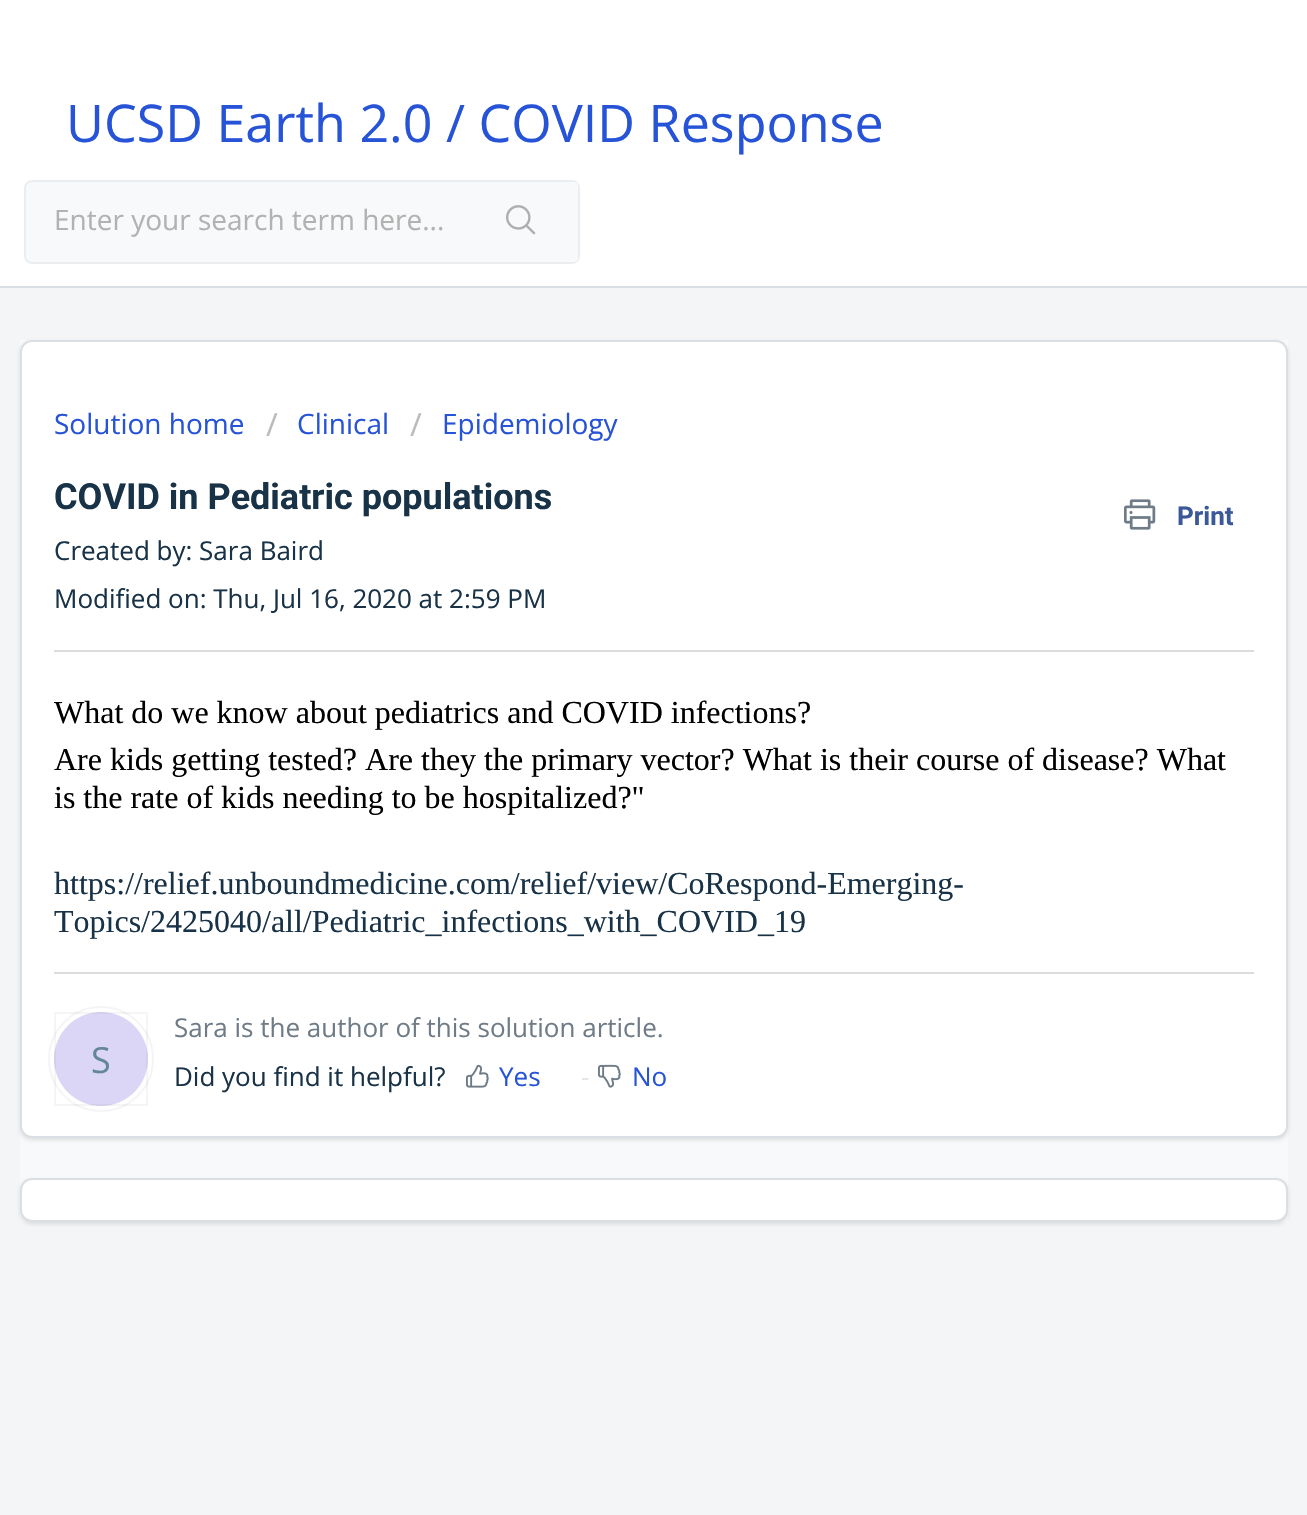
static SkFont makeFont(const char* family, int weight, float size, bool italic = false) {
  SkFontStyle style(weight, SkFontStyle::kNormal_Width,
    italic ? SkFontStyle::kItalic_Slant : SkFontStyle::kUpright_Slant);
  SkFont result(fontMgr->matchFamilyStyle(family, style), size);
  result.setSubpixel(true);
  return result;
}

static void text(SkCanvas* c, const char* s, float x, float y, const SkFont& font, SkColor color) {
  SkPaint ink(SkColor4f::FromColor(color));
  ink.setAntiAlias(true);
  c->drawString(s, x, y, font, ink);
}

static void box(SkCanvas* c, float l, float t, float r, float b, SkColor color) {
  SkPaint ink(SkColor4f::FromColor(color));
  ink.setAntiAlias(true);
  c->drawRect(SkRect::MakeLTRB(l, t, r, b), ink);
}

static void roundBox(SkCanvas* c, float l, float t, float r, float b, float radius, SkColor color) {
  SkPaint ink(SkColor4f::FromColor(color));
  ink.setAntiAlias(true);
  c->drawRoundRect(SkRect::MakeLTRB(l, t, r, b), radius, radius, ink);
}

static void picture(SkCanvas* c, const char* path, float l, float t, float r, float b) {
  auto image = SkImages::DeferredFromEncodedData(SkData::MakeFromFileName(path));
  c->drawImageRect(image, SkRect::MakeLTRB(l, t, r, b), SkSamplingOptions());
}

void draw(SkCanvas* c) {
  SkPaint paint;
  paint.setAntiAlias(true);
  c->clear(0xfff3f5f7);
  box(c, 0, 0, 1307, 286, 0xffffffff);
  box(c, 0, 286, 1307, 288, 0xffdadfe3);
  SkFont face1 = makeFont("Open Sans", 400, 52);
  text(c, "UCSD Earth 2.0 / COVID Response", 66, 142, face1, 0xff2753d7);
  paint.setColor(0xfff8f9fa);
  c->drawRoundRect(SkRect::MakeLTRB(25, 181, 579, 263), 7, 7, paint);
  paint.setStyle(SkPaint::kStroke_Style);
  paint.setStrokeWidth(2);
  paint.setColor(0xffebeef0);
  c->drawRoundRect(SkRect::MakeLTRB(25, 181, 579, 263), 7, 7, paint);
  SkFont face2 = makeFont("Open Sans", 400, 28);
  text(c, "Enter your search term here...", 54, 230, face2, 0xffb2b2b2);
  roundBox(c, 468, 182, 578, 262, 4, 0xfff8f9fa);
  picture(c, "img_01.png", 506, 205, 536, 235);
  box(c, 20, 340, 1288, 1222, 0xfff8f9fa);
  paint.setStyle(SkPaint::kFill_Style);
  paint.setColor(0x263f3f44);
  paint.setMaskFilter(SkMaskFilter::MakeBlur(kNormal_SkBlurStyle, 2));
  c->drawRoundRect(SkRect::MakeLTRB(20, 342, 1288, 1140), 12, 12, paint);
  paint.setMaskFilter(nullptr);
  paint.setColor(0xffffffff);
  c->drawRoundRect(SkRect::MakeLTRB(21, 341, 1287, 1137), 11, 11, paint);
  paint.setStyle(SkPaint::kStroke_Style);
  paint.setColor(0xffdadfe3);
  c->drawRoundRect(SkRect::MakeLTRB(21, 341, 1287, 1137), 11, 11, paint);
  text(c, "Solution home", 54, 434, face2, 0xff2753d7);
  SkFont face3 = makeFont("Open Sans", 400, 32);
  text(c, "/", 266, 436, face3, 0xffbbbbbb);
  text(c, "Clinical", 297, 434, face2, 0xff2753d7);
  text(c, "/", 410, 436, face3, 0xffbbbbbb);
  text(c, "Epidemiology", 442, 434, face2, 0xff2753d7);
  SkFont face4 = makeFont("Roboto", 700, 36);
  text(c, "COVID in Pediatric populations", 54, 509, face4, 0xff183247);
  picture(c, "img_02.png", 1124, 499, 1156, 530);
  SkFont face5 = makeFont("Roboto", 700, 26);
  text(c, "Print", 1177, 525, face5, 0xff3b5998);
  SkFont face6 = makeFont("Open Sans", 400, 26);
  text(c, "Created by: Sara Baird", 54, 560, face6, 0xff183247);
  text(c, "Modified on: Thu, Jul 16, 2020 at 2:59 PM", 54, 608, face6, 0xff183247);
  box(c, 54, 650, 1254, 652, 0xffdcdcdc);
  SkFont face7 = makeFont("Liberation Serif", 400, 32);
  text(c, "What do we know about pediatrics and COVID infections?", 54, 723, face7, 0xff000000);
  text(c, "Are kids getting tested? Are they the primary vector? What is their course of disease? What", 54, 770, face7, 0xff000000);
  text(c, "is the rate of kids needing to be hospitalized?\"", 54, 808, face7, 0xff000000);
  text(c, "https://relief.unboundmedicine.com/relief/view/CoRespond-Emerging-", 54, 894, face7, 0xff183247);
  text(c, "Topics/2425040/all/Pediatric_infections_with_COVID_19", 54, 932, face7, 0xff183247);
  box(c, 54, 972, 1254, 974, 0xffdcdcdc);
  text(c, "Sara is the author of this solution article.", 174, 1037, face6, 0xff6f7c87);
  paint.setColor(0xfff3f5f7);
  c->drawCircle(101, 1059, 52, paint);
  paint.setStyle(SkPaint::kFill_Style);
  paint.setColor(0xffdbd6f5);
  c->drawCircle(101, 1059, 47, paint);
  paint.setStyle(SkPaint::kStroke_Style);
  paint.setColor(0x0a000000);
  c->drawRect(SkRect::MakeLTRB(55, 1013, 147, 1105), paint);
  SkFont face8 = makeFont("Open Sans", 400, 36);
  text(c, "S", 91, 1073, face8, 0xff638699);
  text(c, "Did you find it helpful?", 174, 1086, face6, 0xff183247);
  picture(c, "img_03.png", 466, 1064, 489, 1088);
  text(c, "Yes", 499, 1086, face6, 0xff2753d7);
  text(c, "-", 581, 1086, face6, 0xffe5e5e5);
  picture(c, "img_04.png", 598, 1064, 621, 1088);
  text(c, "No", 632, 1086, face6, 0xff2753d7);
  paint.setStyle(SkPaint::kFill_Style);
  paint.setColor(0x263f3f44);
  paint.setMaskFilter(SkMaskFilter::MakeBlur(kNormal_SkBlurStyle, 2));
  c->drawRoundRect(SkRect::MakeLTRB(20, 1180, 1288, 1224), 12, 12, paint);
  paint.setMaskFilter(nullptr);
  paint.setColor(0xffffffff);
  c->drawRoundRect(SkRect::MakeLTRB(21, 1179, 1287, 1221), 11, 11, paint);
  paint.setStyle(SkPaint::kStroke_Style);
  paint.setColor(0xffdadfe3);
  c->drawRoundRect(SkRect::MakeLTRB(21, 1179, 1287, 1221), 11, 11, paint);
}
